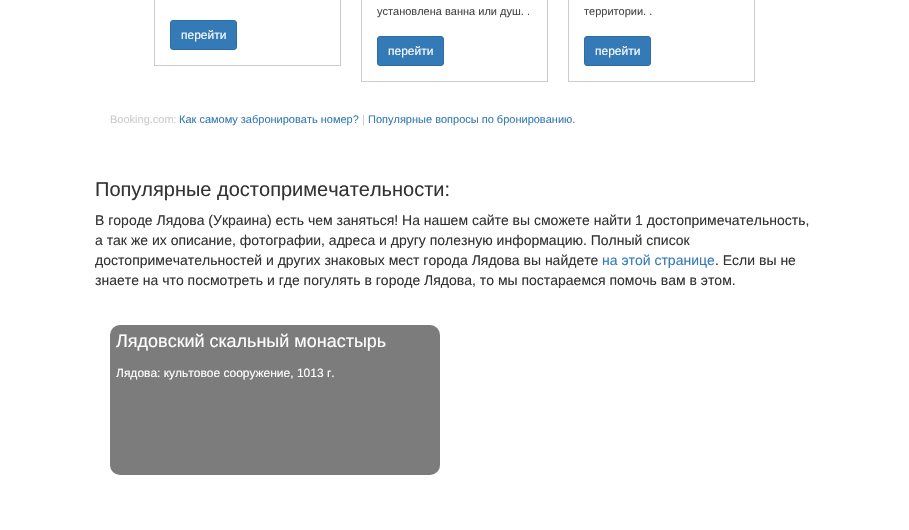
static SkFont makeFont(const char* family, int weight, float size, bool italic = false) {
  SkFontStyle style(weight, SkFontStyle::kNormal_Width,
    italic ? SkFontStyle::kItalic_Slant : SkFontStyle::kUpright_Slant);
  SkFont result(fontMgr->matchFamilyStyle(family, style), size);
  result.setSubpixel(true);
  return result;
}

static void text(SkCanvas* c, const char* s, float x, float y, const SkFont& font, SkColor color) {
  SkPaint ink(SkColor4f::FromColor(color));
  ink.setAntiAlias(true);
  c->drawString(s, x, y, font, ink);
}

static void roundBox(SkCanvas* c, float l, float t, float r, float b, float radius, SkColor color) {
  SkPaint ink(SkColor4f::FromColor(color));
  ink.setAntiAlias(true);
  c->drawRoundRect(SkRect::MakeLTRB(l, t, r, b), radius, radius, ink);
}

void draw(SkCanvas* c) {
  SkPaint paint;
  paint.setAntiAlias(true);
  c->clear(0xffffffff);
  paint.setStyle(SkPaint::kStroke_Style);
  paint.setStrokeWidth(1);
  paint.setColor(0xffcccccc);
  c->drawRect(SkRect::MakeLTRB(154.5f, -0.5f, 340.5f, 65.5f), paint);
  paint.setStyle(SkPaint::kFill_Style);
  paint.setColor(0xff337ab7);
  c->drawRoundRect(SkRect::MakeLTRB(170.5f, 20.5f, 236.5f, 49.5f), 2.5f, 2.5f, paint);
  paint.setStyle(SkPaint::kStroke_Style);
  paint.setColor(0xff2e6da4);
  c->drawRoundRect(SkRect::MakeLTRB(170.5f, 20.5f, 236.5f, 49.5f), 2.5f, 2.5f, paint);
  SkFont face1 = makeFont("Liberation Sans", 400, 12);
  text(c, "перейти", 181, 39, face1, 0xffffffff);
  paint.setColor(0xffcccccc);
  c->drawRect(SkRect::MakeLTRB(361.5f, -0.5f, 547.5f, 81.5f), paint);
  SkFont face2 = makeFont("Liberation Sans", 400, 11);
  text(c, "установлена ванна или душ. .", 377, 15, face2, 0xff444444);
  paint.setStyle(SkPaint::kFill_Style);
  paint.setColor(0xff337ab7);
  c->drawRoundRect(SkRect::MakeLTRB(377.5f, 36.5f, 443.5f, 65.5f), 2.5f, 2.5f, paint);
  paint.setStyle(SkPaint::kStroke_Style);
  paint.setColor(0xff2e6da4);
  c->drawRoundRect(SkRect::MakeLTRB(377.5f, 36.5f, 443.5f, 65.5f), 2.5f, 2.5f, paint);
  text(c, "перейти", 388, 55, face1, 0xffffffff);
  paint.setColor(0xffcccccc);
  c->drawRect(SkRect::MakeLTRB(568.5f, -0.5f, 754.5f, 81.5f), paint);
  text(c, "территории. .", 584, 15, face2, 0xff444444);
  paint.setStyle(SkPaint::kFill_Style);
  paint.setColor(0xff337ab7);
  c->drawRoundRect(SkRect::MakeLTRB(584.5f, 36.5f, 650.5f, 65.5f), 2.5f, 2.5f, paint);
  paint.setStyle(SkPaint::kStroke_Style);
  paint.setColor(0xff2e6da4);
  c->drawRoundRect(SkRect::MakeLTRB(584.5f, 36.5f, 650.5f, 65.5f), 2.5f, 2.5f, paint);
  text(c, "перейти", 595, 55, face1, 0xffffffff);
  text(c, "Booking.com:", 110, 123, face2, 0xffcccccc);
  text(c, "Как самому забронировать номер?", 179, 123, face2, 0xff337ab7);
  text(c, "|", 362, 123, face2, 0xffcccccc);
  text(c, "Популярные вопросы по бронированию.", 368, 123, face2, 0xff337ab7);
  SkFont face3 = makeFont("Liberation Sans", 400, 20);
  text(c, "Популярные достопримечательности:", 95, 196, face3, 0xff333333);
  SkFont face4 = makeFont("Liberation Sans", 400, 14);
  text(c, "В городе Лядова (Украина) есть чем заняться! На нашем сайте вы сможете найти 1 достопримечательность,", 95, 225, face4, 0xff333333);
  text(c, "а так же их описание, фотографии, адреса и другу полезную информацию. Полный список", 95, 245, face4, 0xff333333);
  text(c, "достопримечательностей и других знаковых мест города Лядова вы найдете", 95, 265, face4, 0xff333333);
  text(c, "на этой странице", 602, 265, face4, 0xff337ab7);
  text(c, ". Если вы не", 715, 265, face4, 0xff333333);
  text(c, "знаете на что посмотреть и где погулять в городе Лядова, то мы постараемся помочь вам в этом.", 95, 285, face4, 0xff333333);
  roundBox(c, 110, 325, 440, 475, 10, 0xffcecece);
  roundBox(c, 110, 325, 440, 475, 10, 0x66000000);
  SkFont face5 = makeFont("Liberation Sans", 400, 18);
  text(c, "Лядовский скальный монастырь", 116, 347, face5, 0xffffffff);
  text(c, "Лядова: культовое сооружение, 1013 г.", 116, 377, face1, 0xffffffff);
}
